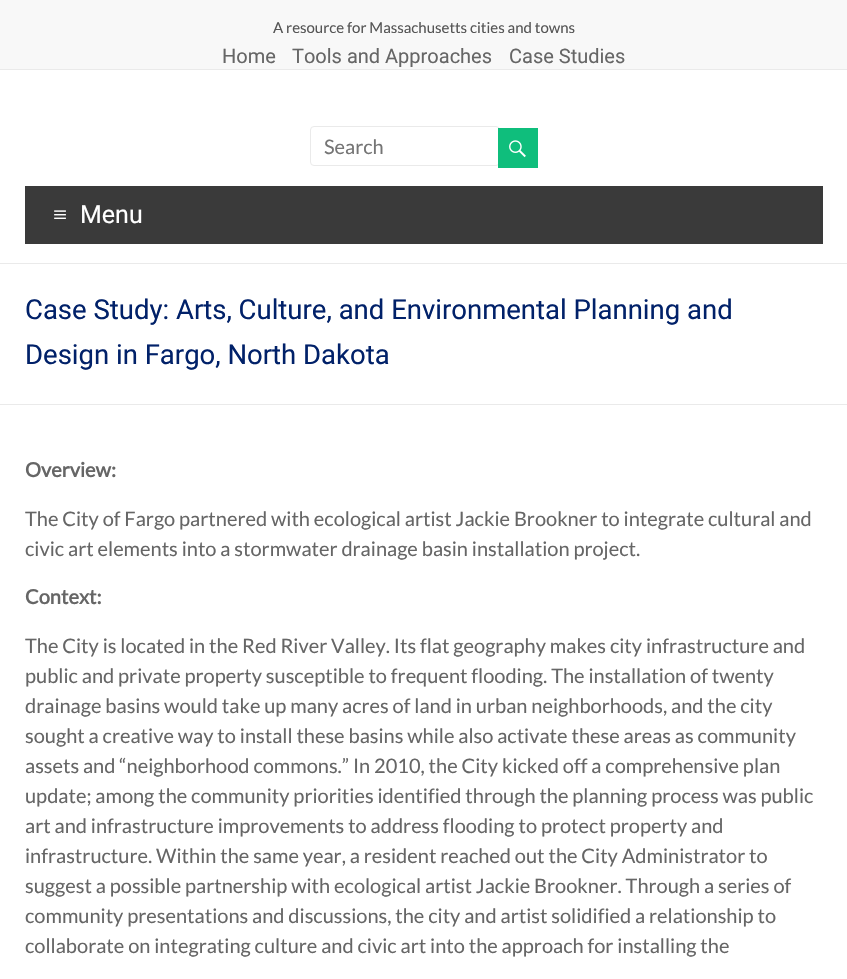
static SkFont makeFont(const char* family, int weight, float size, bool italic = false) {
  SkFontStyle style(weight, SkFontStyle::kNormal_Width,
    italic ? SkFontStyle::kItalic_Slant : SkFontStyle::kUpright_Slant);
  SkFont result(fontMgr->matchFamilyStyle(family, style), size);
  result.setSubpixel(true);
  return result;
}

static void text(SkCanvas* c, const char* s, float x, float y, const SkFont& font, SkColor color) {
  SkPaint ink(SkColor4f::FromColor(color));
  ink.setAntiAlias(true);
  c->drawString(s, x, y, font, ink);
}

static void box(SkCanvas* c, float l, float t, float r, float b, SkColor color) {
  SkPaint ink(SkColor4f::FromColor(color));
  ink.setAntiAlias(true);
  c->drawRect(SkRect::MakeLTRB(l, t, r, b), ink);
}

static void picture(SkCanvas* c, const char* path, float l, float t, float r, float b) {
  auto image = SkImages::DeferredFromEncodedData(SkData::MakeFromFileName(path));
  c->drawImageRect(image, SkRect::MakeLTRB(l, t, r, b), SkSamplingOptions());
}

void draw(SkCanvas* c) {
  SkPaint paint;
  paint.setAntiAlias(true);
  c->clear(0xffffffff);
  box(c, 0, 0, 847, 69, 0xfff8f8f8);
  box(c, 0, 69, 847, 70, 0xffeaeaea);
  SkFont face1 = makeFont("Lato", 400, 15);
  text(c, "A resource for Massachusetts cities and towns", 273, 33, face1, 0xff555555);
  SkFont face2 = makeFont("Roboto", 400, 20);
  text(c, "Home", 222, 63, face2, 0xff666666);
  text(c, "Tools and Approaches", 292, 63, face2, 0xff666666);
  text(c, "Case Studies", 509, 63, face2, 0xff666666);
  box(c, 0, 263, 847, 264, 0xffeaeaea);
  paint.setStyle(SkPaint::kStroke_Style);
  paint.setStrokeWidth(1);
  paint.setColor(0xffeaeaea);
  c->drawRoundRect(SkRect::MakeLTRB(310.5f, 126.5f, 499.5f, 165.5f), 3.5f, 3.5f, paint);
  SkFont face3 = makeFont("Lato", 400, 20);
  text(c, "Search", 324, 154, face3, 0xff757575);
  box(c, 498, 128, 538, 168, 0xff0fbe7c);
  picture(c, "img_01.png", 509, 140, 526, 158);
  box(c, 25, 186, 823, 244, 0xff3a3a3a);
  SkFont face4 = makeFont("Liberation Serif", 400, 25);
  text(c, "≡", 53, 223, face4, 0xffffffff);
  SkFont face5 = makeFont("Roboto", 400, 25);
  text(c, "Menu", 80, 223, face5, 0xffffffff);
  box(c, 0, 404, 847, 405, 0xffeaeaea);
  SkFont face6 = makeFont("Roboto", 400, 27.5f);
  text(c, "Case Study: Arts, Culture, and Environmental Planning and", 25, 319, face6, 0xff012169);
  text(c, "Design in Fargo, North Dakota", 25, 364, face6, 0xff012169);
  SkFont face7 = makeFont("Lato", 700, 20);
  text(c, "Overview:", 25, 477, face7, 0xff666666);
  text(c, "The City of Fargo partnered with ecological artist Jackie Brookner to integrate cultural and", 25, 526, face3, 0xff666666);
  text(c, "civic art elements into a stormwater drainage basin installation project.", 25, 556, face3, 0xff666666);
  text(c, "Context:", 25, 604, face7, 0xff666666);
  text(c, "The City is located in the Red River Valley. Its flat geography makes city infrastructure and", 25, 653, face3, 0xff666666);
  text(c, "public and private property susceptible to frequent flooding. The installation of twenty", 25, 683, face3, 0xff666666);
  text(c, "drainage basins would take up many acres of land in urban neighborhoods, and the city", 25, 713, face3, 0xff666666);
  text(c, "sought a creative way to install these basins while also activate these areas as community", 25, 743, face3, 0xff666666);
  text(c, "assets and “neighborhood commons.” In 2010, the City kicked off a comprehensive plan", 25, 773, face3, 0xff666666);
  text(c, "update; among the community priorities identified through the planning process was public", 25, 803, face3, 0xff666666);
  text(c, "art and infrastructure improvements to address flooding to protect property and", 25, 833, face3, 0xff666666);
  text(c, "infrastructure. Within the same year, a resident reached out the City Administrator to", 25, 863, face3, 0xff666666);
  text(c, "suggest a possible partnership with ecological artist Jackie Brookner. Through a series of", 25, 893, face3, 0xff666666);
  text(c, "community presentations and discussions, the city and artist solidified a relationship to", 25, 923, face3, 0xff666666);
  text(c, "collaborate on integrating culture and civic art into the approach for installing the", 25, 953, face3, 0xff666666);
}
